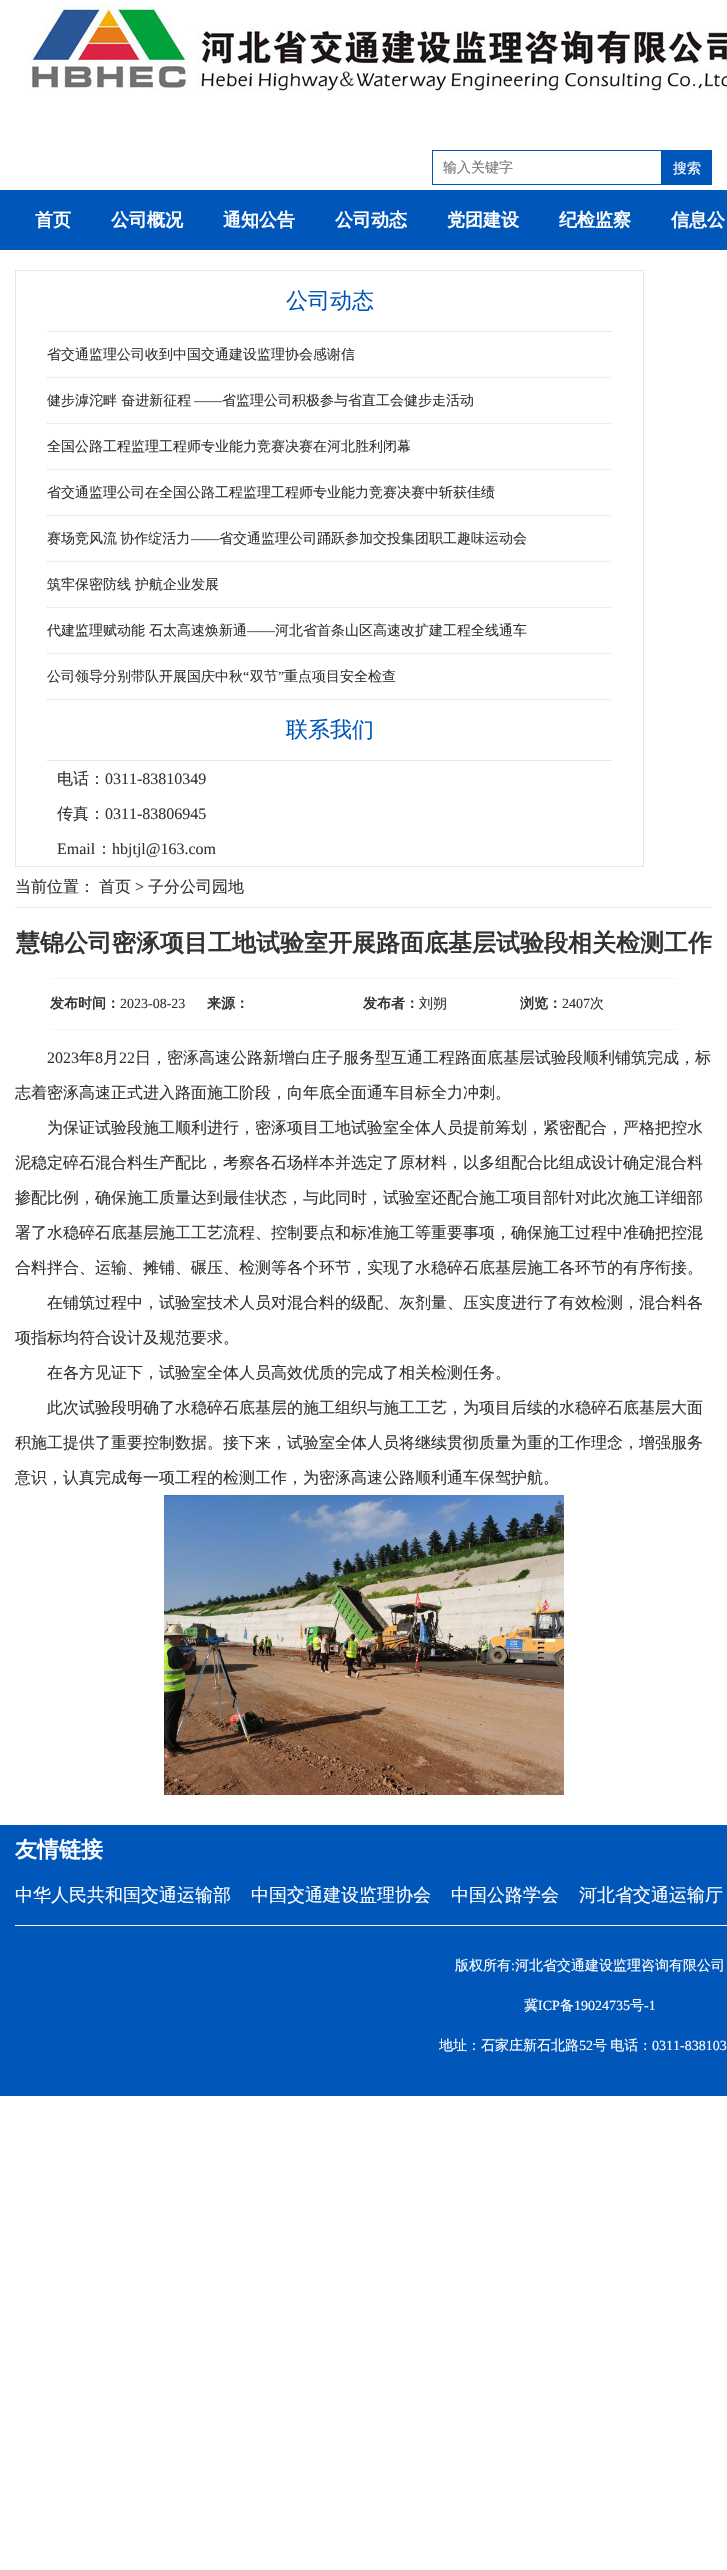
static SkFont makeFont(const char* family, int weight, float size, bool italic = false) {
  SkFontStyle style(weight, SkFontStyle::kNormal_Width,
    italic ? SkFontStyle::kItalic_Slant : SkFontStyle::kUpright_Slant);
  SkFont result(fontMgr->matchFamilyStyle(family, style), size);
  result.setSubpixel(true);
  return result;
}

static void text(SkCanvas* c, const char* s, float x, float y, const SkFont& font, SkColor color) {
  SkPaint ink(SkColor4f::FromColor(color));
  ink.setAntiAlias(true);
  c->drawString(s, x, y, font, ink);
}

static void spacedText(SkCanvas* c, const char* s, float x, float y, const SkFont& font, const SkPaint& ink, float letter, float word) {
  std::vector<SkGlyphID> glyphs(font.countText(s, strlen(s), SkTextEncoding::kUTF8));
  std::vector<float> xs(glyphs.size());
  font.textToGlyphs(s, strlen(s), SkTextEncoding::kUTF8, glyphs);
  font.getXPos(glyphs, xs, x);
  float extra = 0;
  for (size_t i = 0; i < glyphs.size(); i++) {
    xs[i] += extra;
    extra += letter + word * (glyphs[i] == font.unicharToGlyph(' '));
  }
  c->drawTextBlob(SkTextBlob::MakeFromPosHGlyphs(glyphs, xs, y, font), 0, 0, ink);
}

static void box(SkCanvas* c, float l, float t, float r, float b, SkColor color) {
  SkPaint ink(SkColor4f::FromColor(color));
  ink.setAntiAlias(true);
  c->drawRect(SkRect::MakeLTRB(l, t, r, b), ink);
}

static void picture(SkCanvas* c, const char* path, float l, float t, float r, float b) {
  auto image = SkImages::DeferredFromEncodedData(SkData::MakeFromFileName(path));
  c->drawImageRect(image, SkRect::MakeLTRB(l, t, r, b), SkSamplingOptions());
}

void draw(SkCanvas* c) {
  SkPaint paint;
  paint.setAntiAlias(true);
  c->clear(0xffffffff);
  picture(c, "img_01.png", 30, 4, 727, 94);
  paint.setStyle(SkPaint::kStroke_Style);
  paint.setStrokeWidth(1);
  paint.setColor(0xff0056b9);
  c->drawRect(SkRect::MakeLTRB(432.5f, 150.5f, 661.5f, 184.5f), paint);
  SkFont face1 = makeFont("WenQuanYi Zen Hei", 500, 14);
  text(c, "输入关键字", 443, 172, face1, 0xff757575);
  box(c, 662, 150, 712, 185, 0xff0056b9);
  text(c, "搜索", 673, 173, face1, 0xffffffff);
  box(c, 0, 190, 727, 250, 0xff0056b9);
  SkFont face2 = makeFont("WenQuanYi Zen Hei", 700, 18);
  text(c, "首页", 35, 226, face2, 0xffffffff);
  text(c, "公司概况", 111, 226, face2, 0xffffffff);
  text(c, "通知公告", 223, 226, face2, 0xffffffff);
  text(c, "公司动态", 335, 226, face2, 0xffffffff);
  text(c, "党团建设", 447, 226, face2, 0xffffffff);
  text(c, "纪检监察", 559, 226, face2, 0xffffffff);
  text(c, "信息公", 671, 226, face2, 0xffffffff);
  paint.setColor(0xffe6e6e6);
  c->drawRect(SkRect::MakeLTRB(15.5f, 270.5f, 643.5f, 866.5f), paint);
  box(c, 47, 331, 612, 332, 0xffe6e6e6);
  SkFont face3 = makeFont("WenQuanYi Zen Hei", 500, 22);
  text(c, "公司动态", 286, 308, face3, 0xff0056b9);
  paint.setColor(0xffdddddd);
  paint.setPathEffect(SkDashPathEffect::Make({{1, 1}}, 0));
  c->drawPath(SkPathBuilder().moveTo(47, 377.5f).lineTo(612, 377.5f).detach(), paint);
  paint.setPathEffect(nullptr);
  text(c, "省交通监理公司收到中国交通建设监理协会感谢信", 47, 359, face1, 0xff333333);
  paint.setPathEffect(SkDashPathEffect::Make({{1, 1}}, 0));
  c->drawPath(SkPathBuilder().moveTo(47, 423.5f).lineTo(612, 423.5f).detach(), paint);
  paint.setPathEffect(nullptr);
  text(c, "健步滹沱畔 奋进新征程", 47, 405, face1, 0xff333333);
  SkFont face4 = makeFont("Liberation Serif", 400, 14);
  text(c, "——", 194, 405, face4, 0xff333333);
  text(c, "省监理公司积极参与省直工会健步走活动", 222, 405, face1, 0xff333333);
  paint.setPathEffect(SkDashPathEffect::Make({{1, 1}}, 0));
  c->drawPath(SkPathBuilder().moveTo(47, 469.5f).lineTo(612, 469.5f).detach(), paint);
  paint.setPathEffect(nullptr);
  text(c, "全国公路工程监理工程师专业能力竞赛决赛在河北胜利闭幕", 47, 451, face1, 0xff333333);
  paint.setPathEffect(SkDashPathEffect::Make({{1, 1}}, 0));
  c->drawPath(SkPathBuilder().moveTo(47, 515.5f).lineTo(612, 515.5f).detach(), paint);
  paint.setPathEffect(nullptr);
  text(c, "省交通监理公司在全国公路工程监理工程师专业能力竞赛决赛中斩获佳绩", 47, 497, face1, 0xff333333);
  paint.setPathEffect(SkDashPathEffect::Make({{1, 1}}, 0));
  c->drawPath(SkPathBuilder().moveTo(47, 561.5f).lineTo(612, 561.5f).detach(), paint);
  paint.setPathEffect(nullptr);
  paint.setStyle(SkPaint::kFill_Style);
  paint.setColor(0xff333333);
  spacedText(c, "赛场竞风流 协作绽活力", 47, 543, face1, paint, 0, -1);
  text(c, "——", 191, 543, face4, 0xff333333);
  text(c, "省交通监理公司踊跃参加交投集团职工趣味运动会", 219, 543, face1, 0xff333333);
  paint.setStyle(SkPaint::kStroke_Style);
  paint.setColor(0xffdddddd);
  paint.setPathEffect(SkDashPathEffect::Make({{1, 1}}, 0));
  c->drawPath(SkPathBuilder().moveTo(47, 607.5f).lineTo(612, 607.5f).detach(), paint);
  paint.setPathEffect(nullptr);
  text(c, "筑牢保密防线", 47, 589, face1, 0xff333333);
  text(c, "护航企业发展", 135, 589, face1, 0xff333333);
  paint.setPathEffect(SkDashPathEffect::Make({{1, 1}}, 0));
  c->drawPath(SkPathBuilder().moveTo(47, 653.5f).lineTo(612, 653.5f).detach(), paint);
  paint.setPathEffect(nullptr);
  text(c, "代建监理赋动能", 47, 635, face1, 0xff333333);
  text(c, "石太高速焕新通", 149, 635, face1, 0xff333333);
  text(c, "——", 247, 635, face4, 0xff333333);
  text(c, "河北省首条山区高速改扩建工程全线通车", 275, 635, face1, 0xff333333);
  paint.setPathEffect(SkDashPathEffect::Make({{1, 1}}, 0));
  c->drawPath(SkPathBuilder().moveTo(47, 699.5f).lineTo(612, 699.5f).detach(), paint);
  paint.setPathEffect(nullptr);
  text(c, "公司领导分别带队开展国庆中秋", 47, 681, face1, 0xff333333);
  text(c, "“", 243, 681, face4, 0xff333333);
  text(c, "双节", 250, 681, face1, 0xff333333);
  text(c, "”", 278, 681, face4, 0xff333333);
  text(c, "重点项目安全检查", 284, 681, face1, 0xff333333);
  box(c, 47, 760, 612, 761, 0xffe6e6e6);
  text(c, "联系我们", 286, 737, face3, 0xff0056b9);
  SkFont face5 = makeFont("WenQuanYi Zen Hei", 500, 16);
  text(c, "电话：", 57, 784, face5, 0xff333333);
  SkFont face6 = makeFont("Liberation Serif", 400, 16);
  text(c, "0311-83810349", 105, 784, face6, 0xff333333);
  text(c, "传真：", 57, 819, face5, 0xff333333);
  text(c, "0311-83806945", 105, 819, face6, 0xff333333);
  text(c, "Email", 57, 854, face6, 0xff333333);
  text(c, "：", 96, 854, face5, 0xff333333);
  text(c, "hbjtjl@163.com", 112, 854, face6, 0xff333333);
  box(c, 15, 907, 712, 908, 0xffe6e6e6);
  text(c, "当前位置：", 15, 892, face5, 0xff333333);
  text(c, "首页", 99, 892, face5, 0xff333333);
  text(c, ">", 135, 892, face6, 0xff333333);
  text(c, "子分公司园地", 148, 892, face5, 0xff333333);
  SkFont face7 = makeFont("WenQuanYi Zen Hei", 700, 24);
  text(c, "慧锦公司密涿项目工地试验室开展路面底基层试验段相关检测工作", 16, 951, face7, 0xff333333);
  box(c, 50, 978, 677, 979, 0xfff5f5f5);
  box(c, 50, 1029, 677, 1030, 0xfff5f5f5);
  SkFont face8 = makeFont("WenQuanYi Zen Hei", 700, 14);
  text(c, "发布时间：", 50, 1008, face8, 0xff333333);
  text(c, "2023-08-23", 120, 1008, face4, 0xff333333);
  text(c, "来源：", 207, 1008, face8, 0xff333333);
  text(c, "发布者：", 363, 1008, face8, 0xff333333);
  text(c, "刘朔", 419, 1008, face1, 0xff333333);
  text(c, "浏览：", 520, 1008, face8, 0xff333333);
  text(c, "2407", 562, 1008, face4, 0xff333333);
  text(c, "次", 590, 1008, face1, 0xff333333);
  text(c, "2023", 47, 1063, face6, 0xff333333);
  text(c, "年", 79, 1063, face5, 0xff333333);
  text(c, "8", 95, 1063, face6, 0xff333333);
  text(c, "月", 103, 1063, face5, 0xff333333);
  text(c, "22", 119, 1063, face6, 0xff333333);
  text(c, "日，密涿高速公路新增白庄子服务型互通工程路面底基层试验段顺利铺筑完成，标", 135, 1063, face5, 0xff333333);
  text(c, "志着密涿高速正式进入路面施工阶段，向年底全面通车目标全力冲刺。", 15, 1098, face5, 0xff333333);
  text(c, "为保证试验段施工顺利进行，密涿项目工地试验室全体人员提前筹划，紧密配合，严格把控水", 47, 1133, face5, 0xff333333);
  text(c, "泥稳定碎石混合料生产配比，考察各石场样本并选定了原材料，以多组配合比组成设计确定混合料", 15, 1168, face5, 0xff333333);
  text(c, "掺配比例，确保施工质量达到最佳状态，与此同时，试验室还配合施工项目部针对此次施工详细部", 15, 1203, face5, 0xff333333);
  text(c, "署了水稳碎石底基层施工工艺流程、控制要点和标准施工等重要事项，确保施工过程中准确把控混", 15, 1238, face5, 0xff333333);
  text(c, "合料拌合、运输、摊铺、碾压、检测等各个环节，实现了水稳碎石底基层施工各环节的有序衔接。", 15, 1273, face5, 0xff333333);
  text(c, "在铺筑过程中，试验室技术人员对混合料的级配、灰剂量、压实度进行了有效检测，混合料各", 47, 1308, face5, 0xff333333);
  text(c, "项指标均符合设计及规范要求。", 15, 1343, face5, 0xff333333);
  text(c, "在各方见证下，试验室全体人员高效优质的完成了相关检测任务。", 47, 1378, face5, 0xff333333);
  text(c, "此次试验段明确了水稳碎石底基层的施工组织与施工工艺，为项目后续的水稳碎石底基层大面", 47, 1413, face5, 0xff333333);
  text(c, "积施工提供了重要控制数据。接下来，试验室全体人员将继续贯彻质量为重的工作理念，增强服务", 15, 1448, face5, 0xff333333);
  text(c, "意识，认真完成每一项工程的检测工作，为密涿高速公路顺利通车保驾护航。", 15, 1483, face5, 0xff333333);
  picture(c, "img_02.png", 164, 1495, 564, 1795);
  box(c, 0, 1825, 727, 2096, 0xff0056b9);
  box(c, 15, 1925, 727, 1926, 0xffffffff);
  SkFont face9 = makeFont("WenQuanYi Zen Hei", 700, 22);
  text(c, "友情链接", 15, 1857, face9, 0xffffffff);
  SkFont face10 = makeFont("WenQuanYi Zen Hei", 500, 18);
  text(c, "中华人民共和国交通运输部", 15, 1901, face10, 0xffffffff);
  text(c, "中国交通建设监理协会", 251, 1901, face10, 0xffffffff);
  text(c, "中国公路学会", 451, 1901, face10, 0xffffffff);
  text(c, "河北省交通运输厅", 579, 1901, face10, 0xffffffff);
  text(c, "版权所有", 455, 1970, face1, 0xffffffff);
  text(c, ":", 511, 1970, face4, 0xffffffff);
  text(c, "河北省交通建设监理咨询有限公司", 515, 1970, face1, 0xffffffff);
  text(c, "冀", 524, 2010, face1, 0xffffffff);
  text(c, "ICP", 538, 2010, face4, 0xffffffff);
  text(c, "备", 560, 2010, face1, 0xffffffff);
  text(c, "19024735", 574, 2010, face4, 0xffffffff);
  text(c, "号", 630, 2010, face1, 0xffffffff);
  text(c, "-1", 644, 2010, face4, 0xffffffff);
  text(c, "地址：石家庄新石北路", 439, 2050, face1, 0xffffffff);
  text(c, "52", 579, 2050, face4, 0xffffffff);
  paint.setStyle(SkPaint::kFill_Style);
  paint.setColor(0xffffffff);
  spacedText(c, "号 电话：", 593, 2050, face1, paint, 0, -1);
  text(c, "0311-838103", 652, 2050, face4, 0xffffffff);
}
